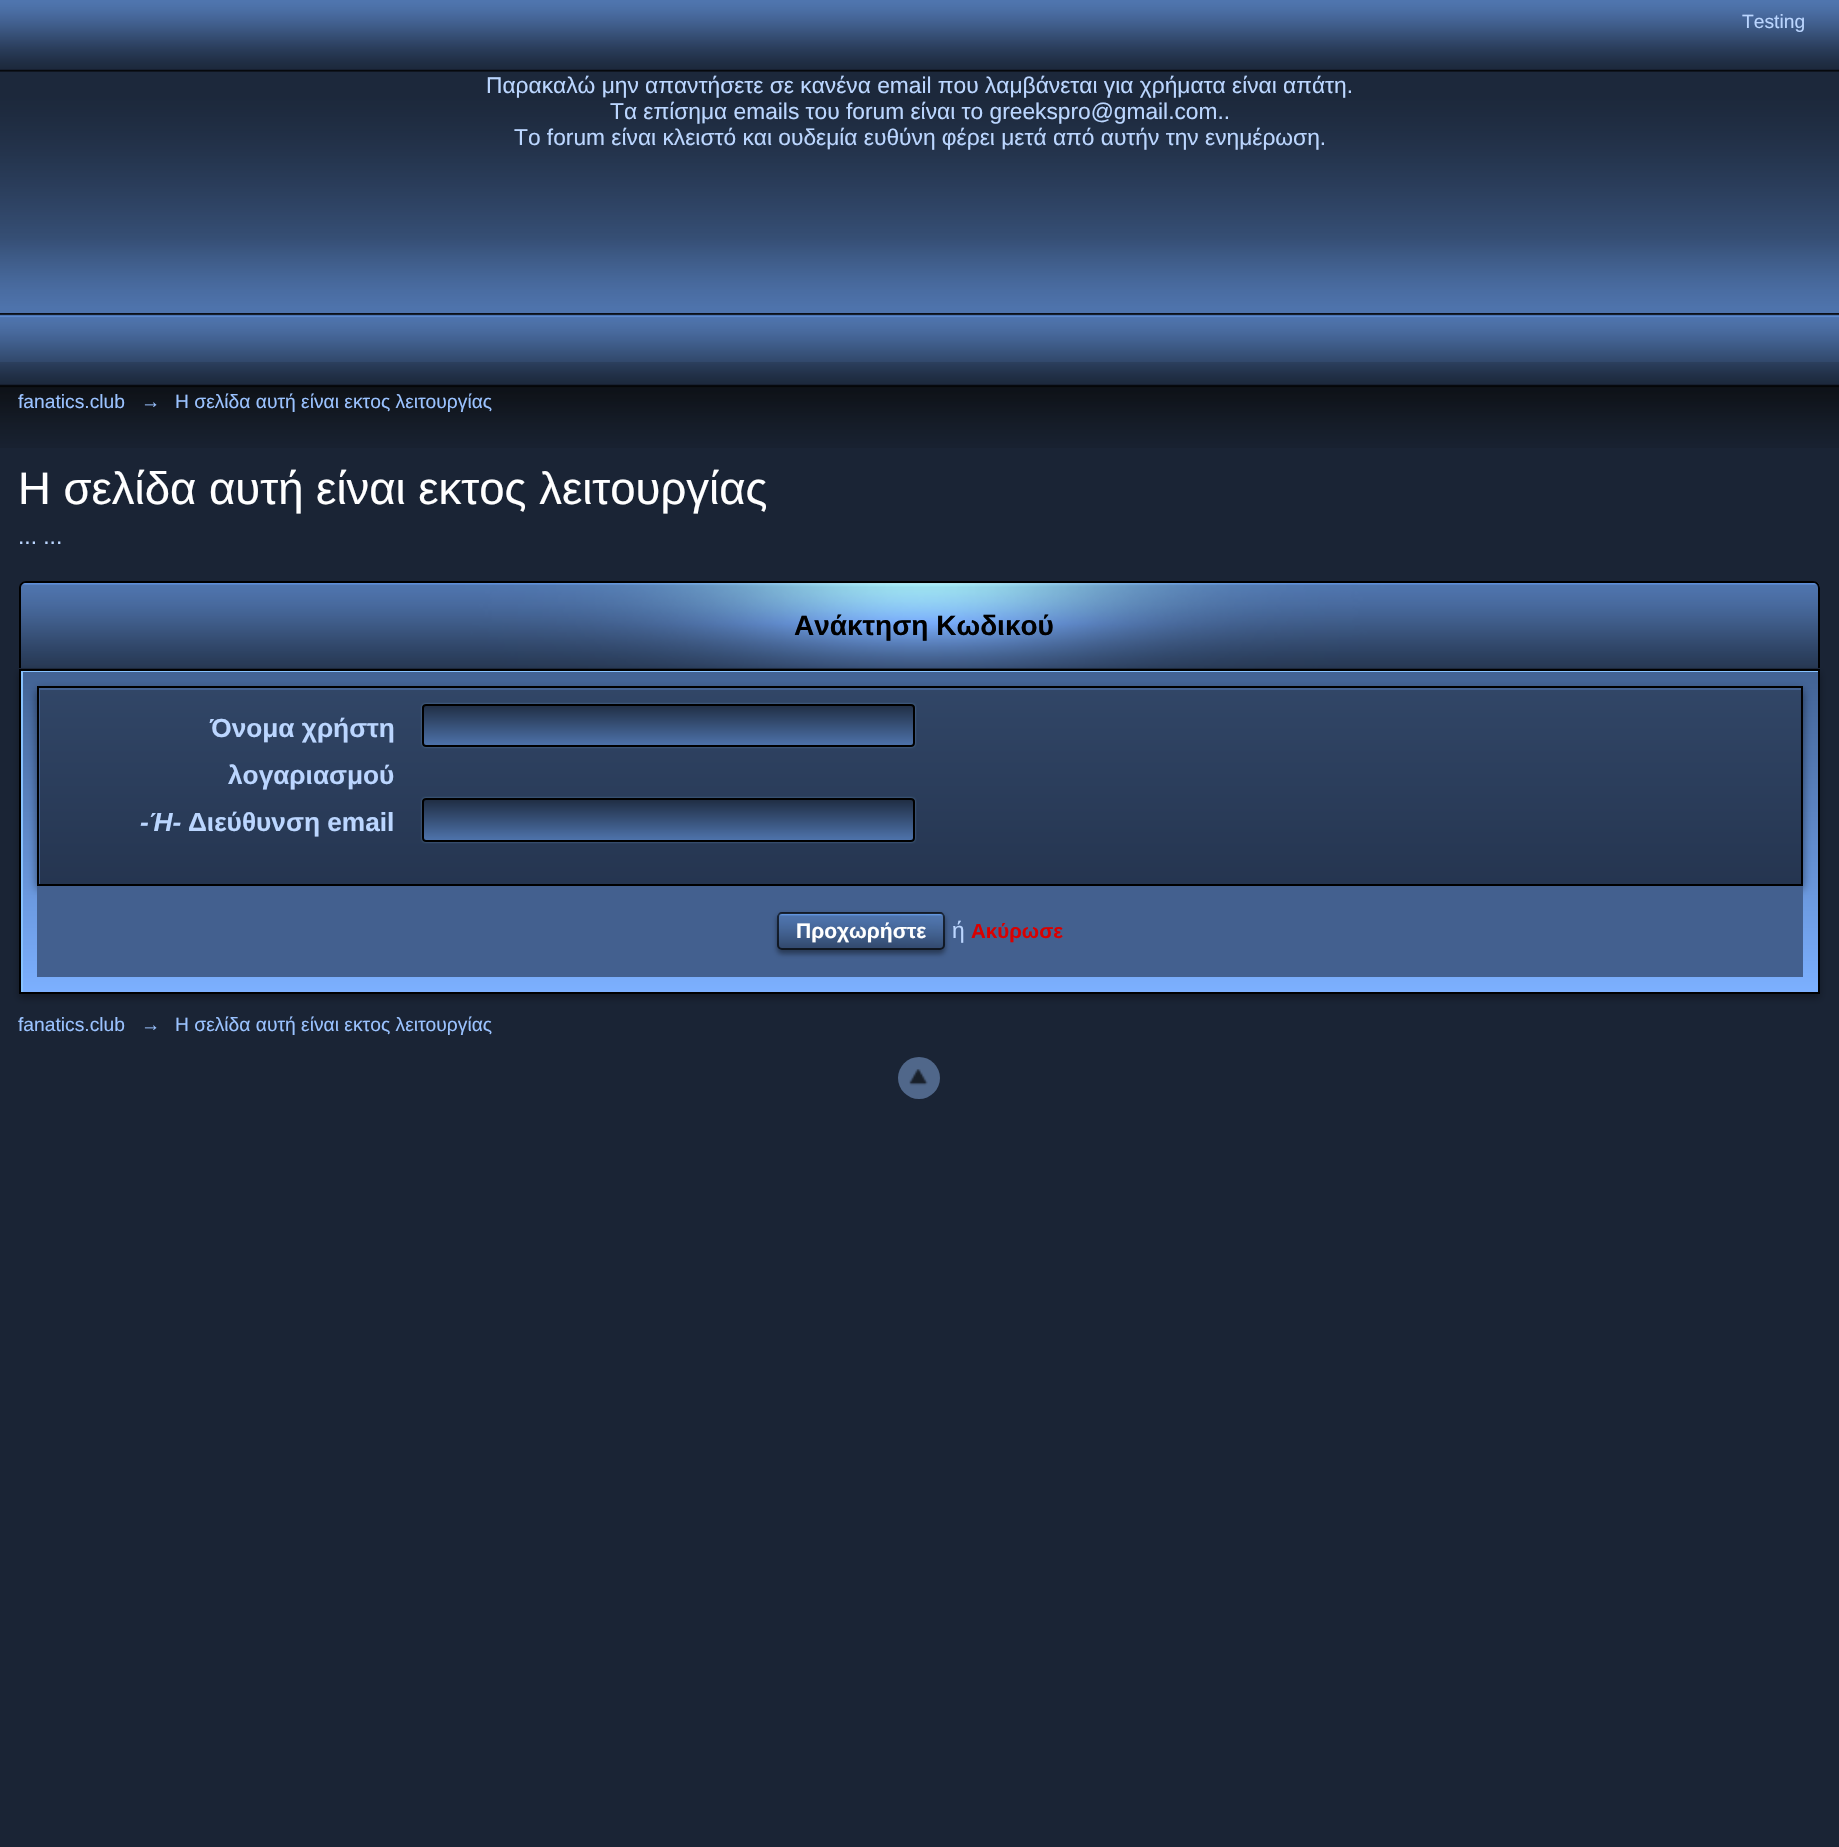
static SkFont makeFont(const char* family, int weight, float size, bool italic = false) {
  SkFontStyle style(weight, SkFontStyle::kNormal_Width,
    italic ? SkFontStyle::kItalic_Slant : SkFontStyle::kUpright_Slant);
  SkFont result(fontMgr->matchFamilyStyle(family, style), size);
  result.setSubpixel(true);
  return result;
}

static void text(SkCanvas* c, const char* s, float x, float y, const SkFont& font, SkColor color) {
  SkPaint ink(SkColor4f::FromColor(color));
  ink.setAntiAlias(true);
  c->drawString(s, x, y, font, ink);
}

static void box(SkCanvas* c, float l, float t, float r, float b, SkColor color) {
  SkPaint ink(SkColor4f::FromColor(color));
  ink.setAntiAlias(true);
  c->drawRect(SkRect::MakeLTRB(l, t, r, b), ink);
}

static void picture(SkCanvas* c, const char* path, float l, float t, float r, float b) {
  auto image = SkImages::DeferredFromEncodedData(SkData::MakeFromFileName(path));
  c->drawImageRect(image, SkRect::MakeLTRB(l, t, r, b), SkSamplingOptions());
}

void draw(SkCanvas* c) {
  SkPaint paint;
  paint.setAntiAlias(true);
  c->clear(0xff1a2435);
  picture(c, "img_01.png", 0, 0, 1839, 448);
  SkFont face1 = makeFont("Liberation Sans", 400, 19.25f);
  text(c, "Testing", 1742, 28, face1, 0xffbbd6ff);
  picture(c, "img_02.png", 0, 71, 1839, 314);
  SkFont face2 = makeFont("Liberation Sans", 400, 22.75f);
  text(c, "Παρακαλώ μην απαντήσετε σε κανένα email που λαμβάνεται για χρήματα είναι απάτη.", 486, 93, face2, 0xffbbd6ff);
  text(c, "Τα επίσημα emails του forum είναι το greekspro@gmail.com..", 610, 119, face2, 0xffbbd6ff);
  text(c, "Το forum είναι κλειστό και ουδεμία ευθύνη φέρει μετά από αυτήν την ενημέρωση.", 514, 145, face2, 0xffbbd6ff);
  picture(c, "img_03.png", 0, 313, 1839, 362);
  text(c, "fanatics.club", 18, 408, face1, 0xff9ac2ff);
  text(c, "→", 141, 408, face1, 0xff9ac2ff);
  text(c, "Η σελίδα αυτή είναι εκτος λειτουργίας", 175, 408, face1, 0xff9ac2ff);
  SkFont face3 = makeFont("Liberation Sans", 400, 45.5f);
  text(c, "Η σελίδα αυτή είναι εκτος λειτουργίας", 18, 504, face3, 0xffffffff);
  text(c, "... ...", 18, 544, face2, 0xffbbd6ff);
  picture(c, "img_04.png", 19, 581, 1820, 669);
  paint.setColor(0xff000000);
  c->drawPath(SkPathBuilder(SkPathFillType::kEvenOdd).moveTo(26, 581).lineTo(1813, 581).cubicTo(1817, 581, 1820, 584, 1820, 588).lineTo(1820, 668).lineTo(19, 668).lineTo(19, 588).cubicTo(19, 584, 22, 581, 26, 581).close().moveTo(26, 583).lineTo(1813, 583).cubicTo(1816, 583, 1818, 585, 1818, 588).lineTo(1818, 668).lineTo(21, 668).lineTo(21, 588).cubicTo(21, 585, 23, 583, 26, 583).close().detach(), paint);
  SkFont face4 = makeFont("Liberation Sans", 700, 28);
  text(c, "Ανάκτηση Κωδικού", 794, 635, face4, 0xff000000);
  paint.setColor(0x4d000000);
  paint.setMaskFilter(SkMaskFilter::MakeBlur(kNormal_SkBlurStyle, 3.5f));
  c->drawRect(SkRect::MakeLTRB(19, 672, 1820, 998), paint);
  paint.setMaskFilter(nullptr);
  {
    const SkColor colors[] = {0xff426293, 0xff7cb0ff};
    const float stops[] = {0, 1};
    const SkPoint ends[] = {{21, 670}, {21, 992}};
    paint.setShader(SkGradientShader::MakeLinear(ends, colors, stops, 2, SkTileMode::kClamp));
    paint.setAlpha(255);
  }
  c->drawRect(SkRect::MakeLTRB(23, 672, 1818, 992), paint);
  c->save();
  c->clipRect(SkRect::MakeLTRB(21, 670, 1818, 992));
  paint.setShader(nullptr);
  paint.setColor(0xff88c3ff);
  c->drawPath(SkPathBuilder(SkPathFillType::kEvenOdd).moveTo(-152, 497).lineTo(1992, 497).lineTo(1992, 1166).lineTo(-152, 1166).close().moveTo(23, 672).lineTo(1820, 672).lineTo(1820, 994).lineTo(23, 994).close().detach(), paint);
  c->restore();
  paint.setStyle(SkPaint::kStroke_Style);
  paint.setStrokeWidth(2);
  paint.setColor(0xff000000);
  c->drawRect(SkRect::MakeLTRB(20, 670, 1819, 993), paint);
  paint.setStyle(SkPaint::kFill_Style);
  paint.setColor(0x80000000);
  paint.setMaskFilter(SkMaskFilter::MakeBlur(kNormal_SkBlurStyle, 4.5f));
  c->drawRect(SkRect::MakeLTRB(37, 690, 1803, 889), paint);
  paint.setMaskFilter(nullptr);
  {
    const SkColor colors[] = {0xff314667, 0xff253550};
    const float stops[] = {0, 1};
    const SkPoint ends[] = {{39, 688}, {39, 884}};
    paint.setShader(SkGradientShader::MakeLinear(ends, colors, stops, 2, SkTileMode::kClamp));
    paint.setAlpha(255);
  }
  c->drawRect(SkRect::MakeLTRB(40, 690, 1801, 884), paint);
  c->save();
  c->clipRect(SkRect::MakeLTRB(39, 688, 1801, 884));
  paint.setShader(nullptr);
  paint.setColor(0xff436190);
  c->drawPath(SkPathBuilder(SkPathFillType::kEvenOdd).moveTo(-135, 514).lineTo(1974, 514).lineTo(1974, 1057).lineTo(-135, 1057).close().moveTo(40, 690).lineTo(1802, 690).lineTo(1802, 886).lineTo(40, 886).close().detach(), paint);
  c->restore();
  paint.setStyle(SkPaint::kStroke_Style);
  paint.setColor(0xff000000);
  c->drawRect(SkRect::MakeLTRB(38, 687, 1802, 885), paint);
  SkFont face5 = makeFont("Liberation Sans", 700, 26.25f);
  text(c, "Όνομα χρήστη", 210, 737, face5, 0xffbbd6ff);
  text(c, "λογαριασμού", 228, 784, face5, 0xffbbd6ff);
  paint.setStyle(SkPaint::kFill_Style);
  paint.setColor(0x808bcdff);
  paint.setMaskFilter(SkMaskFilter::MakeBlur(kNormal_SkBlurStyle, 1));
  c->drawRoundRect(SkRect::MakeLTRB(422, 704, 915, 747), 4, 4, paint);
  paint.setMaskFilter(nullptr);
  c->save();
  c->clipPath(SkPathBuilder().moveTo(426, 704).lineTo(911, 704).cubicTo(913, 704, 915, 706, 915, 708).lineTo(915, 743).cubicTo(915, 745, 913, 747, 911, 747).lineTo(426, 747).cubicTo(424, 747, 422, 745, 422, 743).lineTo(422, 708).cubicTo(422, 706, 424, 704, 426, 704).close().detach(), true);
  {
    const SkColor colors[] = {0xff202e44, 0xff4e73ab};
    const float stops[] = {0, 1};
    const SkPoint ends[] = {{424, 705}, {424, 746}};
    paint.setShader(SkGradientShader::MakeLinear(ends, colors, stops, 2, SkTileMode::kClamp));
    paint.setAlpha(255);
  }
  c->drawRect(SkRect::MakeLTRB(422, 705, 915, 746), paint);
  c->restore();
  paint.setStyle(SkPaint::kStroke_Style);
  paint.setShader(nullptr);
  paint.setColor(0xff000000);
  c->drawRoundRect(SkRect::MakeLTRB(423, 705, 914, 746), 3, 3, paint);
  SkFont face6 = makeFont("Liberation Sans", 700, 26.25f, true);
  text(c, "-Ή-", 140, 831, face6, 0xffbbd6ff);
  text(c, "Διεύθυνση email", 188, 831, face5, 0xffbbd6ff);
  paint.setStyle(SkPaint::kFill_Style);
  paint.setColor(0x808bcdff);
  paint.setMaskFilter(SkMaskFilter::MakeBlur(kNormal_SkBlurStyle, 1));
  c->drawRoundRect(SkRect::MakeLTRB(422, 798, 915, 842), 4, 4, paint);
  paint.setMaskFilter(nullptr);
  c->save();
  c->clipPath(SkPathBuilder().moveTo(426, 798).lineTo(911, 798).cubicTo(913, 798, 915, 800, 915, 802).lineTo(915, 838).cubicTo(915, 840, 913, 842, 911, 842).lineTo(426, 842).cubicTo(424, 842, 422, 840, 422, 838).lineTo(422, 802).cubicTo(422, 800, 424, 798, 426, 798).close().detach(), true);
  {
    const SkColor colors[] = {0xff202e44, 0xff4e73ab};
    const float stops[] = {0, 1};
    const SkPoint ends[] = {{424, 800}, {424, 840}};
    paint.setShader(SkGradientShader::MakeLinear(ends, colors, stops, 2, SkTileMode::kClamp));
    paint.setAlpha(255);
  }
  c->drawRect(SkRect::MakeLTRB(422, 800, 915, 840), paint);
  c->restore();
  paint.setStyle(SkPaint::kStroke_Style);
  paint.setShader(nullptr);
  paint.setColor(0xff000000);
  c->drawRoundRect(SkRect::MakeLTRB(423, 799, 914, 841), 3, 3, paint);
  box(c, 37, 886, 1803, 977, 0xff43608f);
  paint.setStyle(SkPaint::kFill_Style);
  paint.setColor(0x66000000);
  paint.setMaskFilter(SkMaskFilter::MakeBlur(kNormal_SkBlurStyle, 2.5f));
  c->drawRoundRect(SkRect::MakeLTRB(777, 915, 945, 954), 5, 5, paint);
  paint.setMaskFilter(nullptr);
  picture(c, "img_05.png", 777, 913, 945, 950);
  paint.setStyle(SkPaint::kStroke_Style);
  paint.setColor(0xb3000000);
  c->drawRoundRect(SkRect::MakeLTRB(778, 913, 944, 949), 4, 4, paint);
  SkFont face7 = makeFont("Liberation Sans", 700, 21);
  text(c, "Προχωρήστε", 796, 938, face7, 0xffffffff);
  text(c, "ή", 952, 938, face2, 0xffbbd6ff);
  SkFont face8 = makeFont("Liberation Sans", 700, 20.5f);
  text(c, "Ακύρωσε", 971, 938, face8, 0xffd90000);
  text(c, "fanatics.club", 18, 1031, face1, 0xff9ac2ff);
  text(c, "→", 141, 1031, face1, 0xff9ac2ff);
  text(c, "Η σελίδα αυτή είναι εκτος λειτουργίας", 175, 1031, face1, 0xff9ac2ff);
  paint.setStyle(SkPaint::kFill_Style);
  paint.setColor(0xff50678a);
  c->drawCircle(919, 1078, 21, paint);
  picture(c, "img_06.png", 909, 1069, 928, 1086);
}
